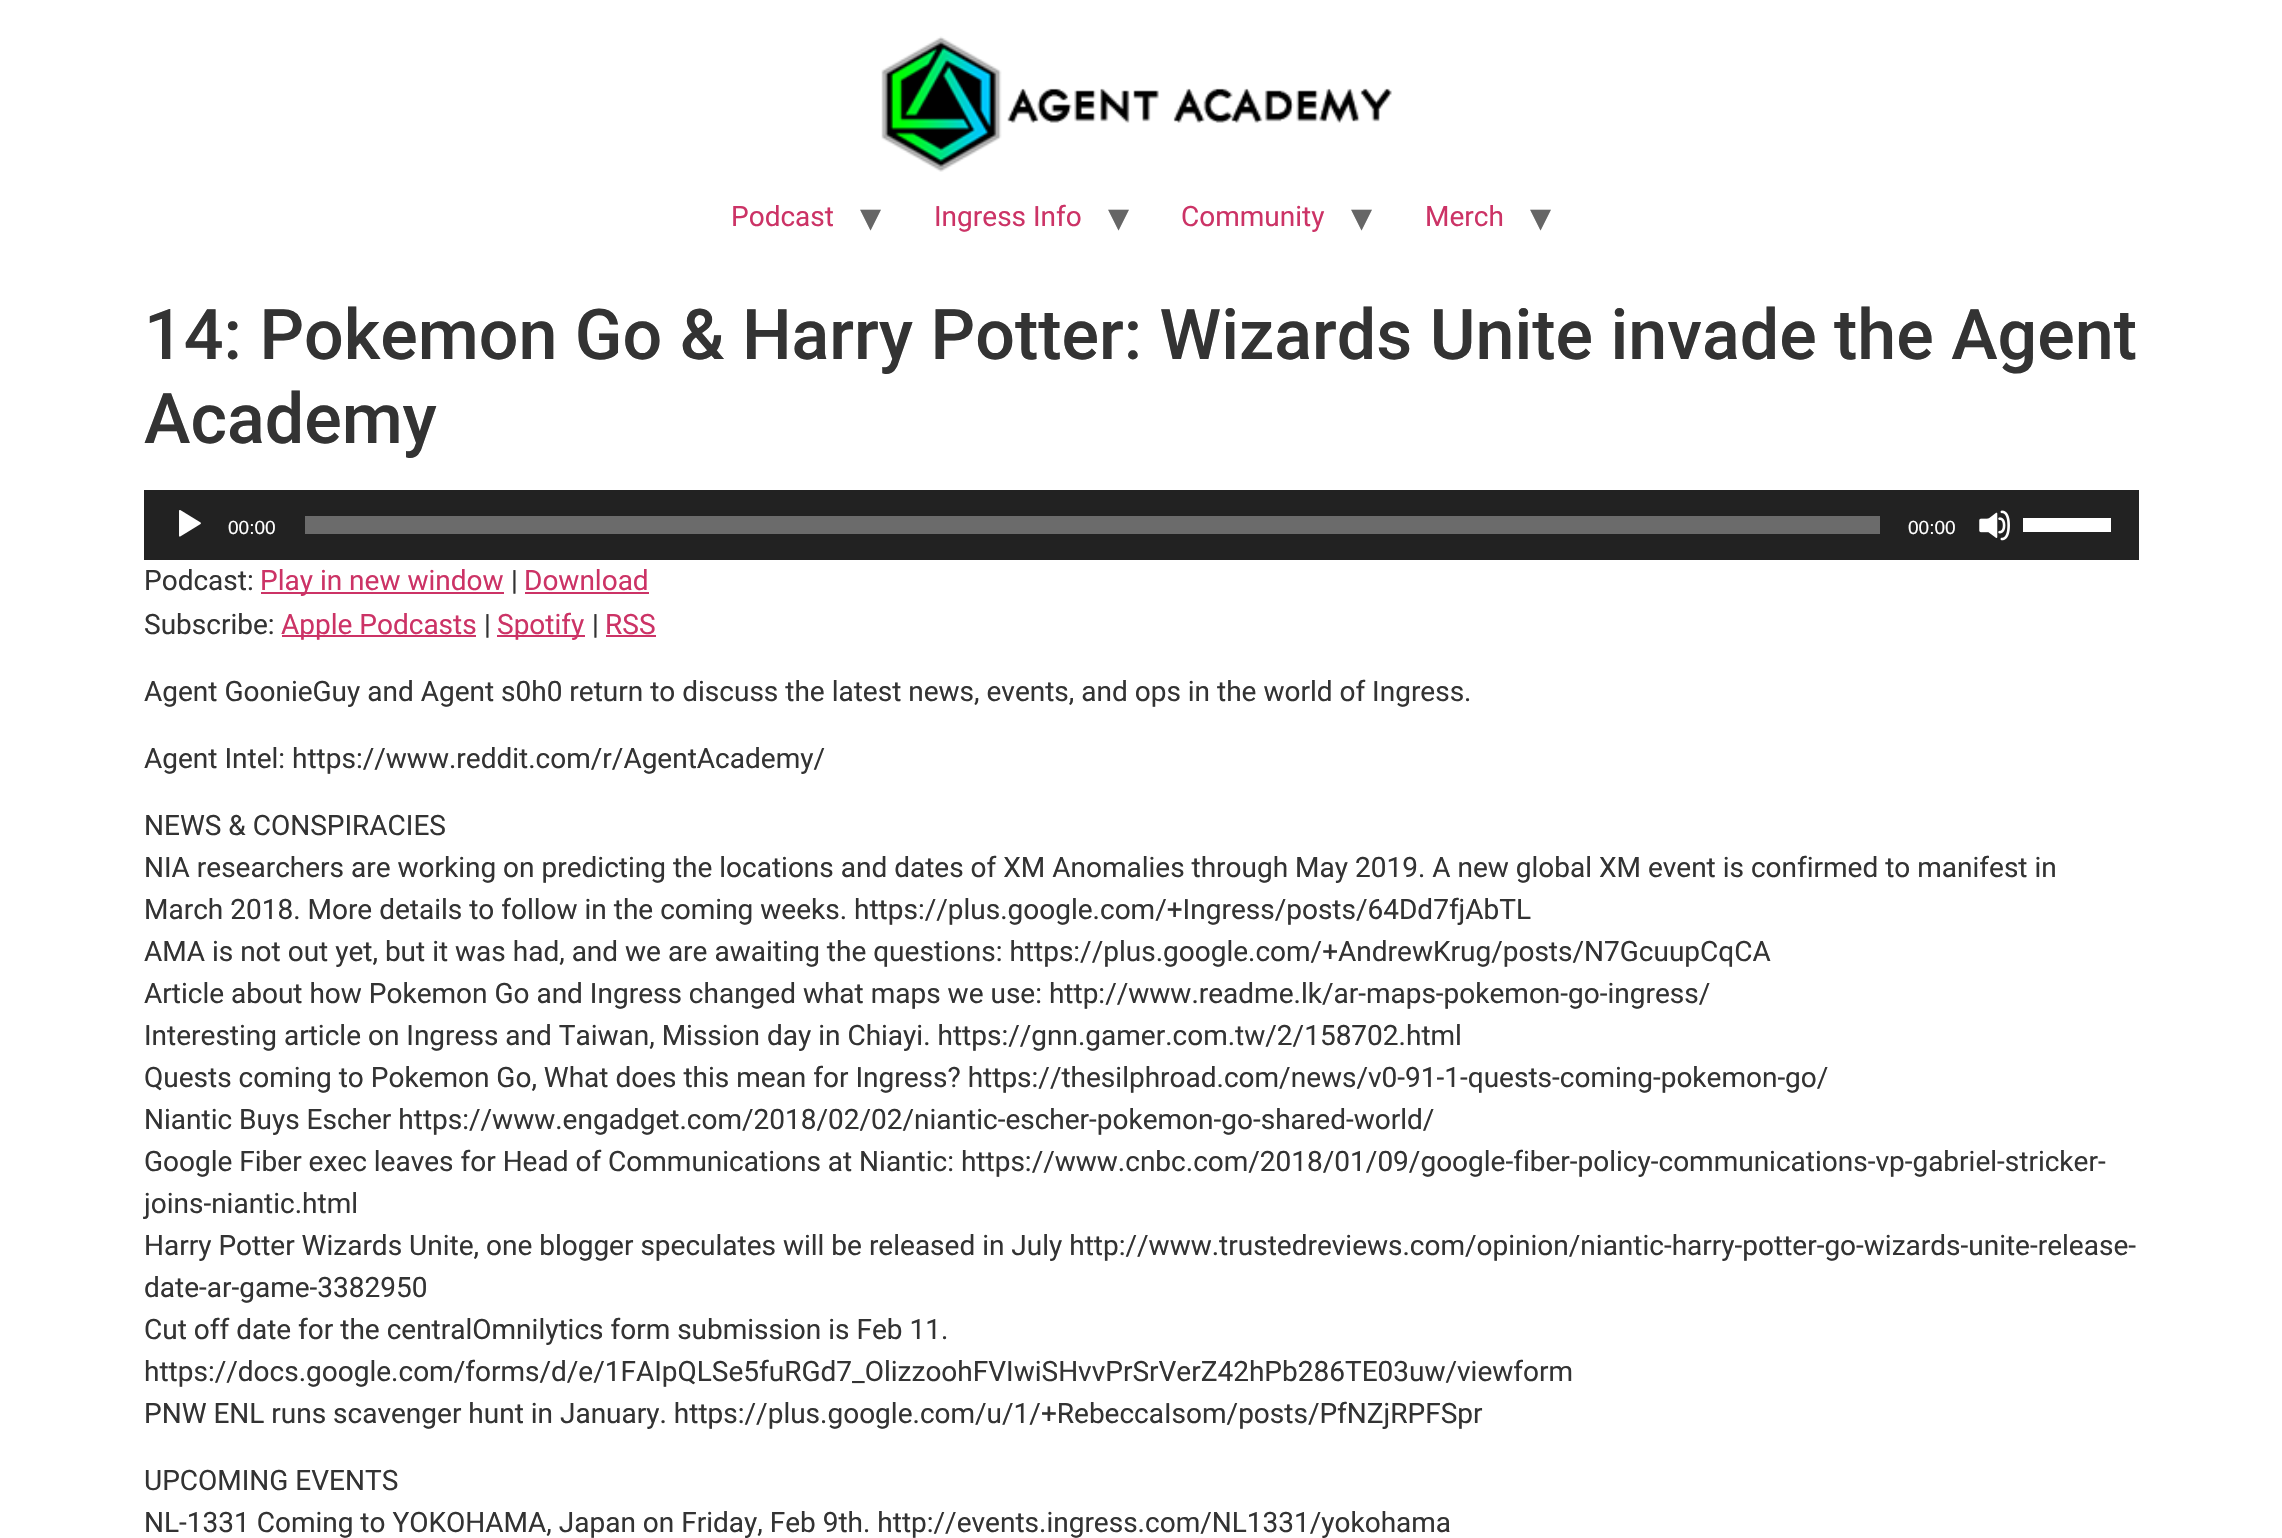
static SkFont makeFont(const char* family, int weight, float size, bool italic = false) {
  SkFontStyle style(weight, SkFontStyle::kNormal_Width,
    italic ? SkFontStyle::kItalic_Slant : SkFontStyle::kUpright_Slant);
  SkFont result(fontMgr->matchFamilyStyle(family, style), size);
  result.setSubpixel(true);
  return result;
}

static void text(SkCanvas* c, const char* s, float x, float y, const SkFont& font, SkColor color) {
  SkPaint ink(SkColor4f::FromColor(color));
  ink.setAntiAlias(true);
  c->drawString(s, x, y, font, ink);
}

static void box(SkCanvas* c, float l, float t, float r, float b, SkColor color) {
  SkPaint ink(SkColor4f::FromColor(color));
  ink.setAntiAlias(true);
  c->drawRect(SkRect::MakeLTRB(l, t, r, b), ink);
}

static void picture(SkCanvas* c, const char* path, float l, float t, float r, float b) {
  auto image = SkImages::DeferredFromEncodedData(SkData::MakeFromFileName(path));
  c->drawImageRect(image, SkRect::MakeLTRB(l, t, r, b), SkSamplingOptions());
}

void draw(SkCanvas* c) {
  SkPaint paint;
  paint.setAntiAlias(true);
  c->clear(0xffffffff);
  picture(c, "img_01.png", 881, 36, 1392, 172);
  SkFont face1 = makeFont("Roboto", 400, 28);
  text(c, "Podcast", 731, 226, face1, 0xffcc3366);
  SkFont face2 = makeFont("DejaVu Sans", 400, 42);
  text(c, "▾", 860, 231, face2, 0xff666666);
  text(c, "Ingress Info", 934, 226, face1, 0xffcc3366);
  text(c, "▾", 1108, 231, face2, 0xff666666);
  text(c, "Community", 1181, 226, face1, 0xffcc3366);
  text(c, "▾", 1351, 231, face2, 0xff666666);
  text(c, "Merch", 1425, 226, face1, 0xffcc3366);
  text(c, "▾", 1530, 231, face2, 0xff666666);
  SkFont face3 = makeFont("Roboto", 500, 70);
  text(c, "14: Pokemon Go & Harry Potter: Wizards Unite invade the Agent", 144, 359, face3, 0xff333333);
  text(c, "Academy", 144, 443, face3, 0xff333333);
  box(c, 144, 490, 2139, 560, 0xff222222);
  picture(c, "img_02.png", 179, 510, 201, 537);
  SkFont face4 = makeFont("Liberation Sans", 400, 19);
  text(c, "00:00", 228, 534, face4, 0xffffffff);
  box(c, 305, 516, 1880, 534, 0xff6b6b6b);
  text(c, "00:00", 1908, 534, face4, 0xffffffff);
  picture(c, "img_03.png", 1979, 510, 2010, 541);
  box(c, 2023, 518, 2111, 532, 0xffffffff);
  text(c, "Podcast:", 144, 590, face1, 0xff333333);
  box(c, 261, 592, 504, 594, 0xffcc3366);
  text(c, "Play in new window", 260, 590, face1, 0xffcc3366);
  text(c, "|", 511, 590, face1, 0xff333333);
  text(c, "Download", 524, 590, face1, 0xffcc3366);
  box(c, 525, 592, 649, 594, 0xffcc3366);
  text(c, "Subscribe:", 144, 634, face1, 0xff333333);
  box(c, 282, 635, 476, 637, 0xffcc3366);
  text(c, "Apple Podcasts", 281, 634, face1, 0xffcc3366);
  text(c, "|", 484, 634, face1, 0xff333333);
  box(c, 497, 635, 585, 637, 0xffcc3366);
  text(c, "Spotify", 497, 634, face1, 0xffcc3366);
  text(c, "|", 592, 634, face1, 0xff333333);
  text(c, "RSS", 605, 634, face1, 0xffcc3366);
  box(c, 606, 635, 656, 637, 0xffcc3366);
  text(c, "Agent GoonieGuy and Agent s0h0 return to discuss the latest news, events, and ops in the world of Ingress.", 144, 701, face1, 0xff333333);
  text(c, "Agent Intel: https://www.reddit.com/r/AgentAcademy/", 144, 768, face1, 0xff333333);
  text(c, "NEWS & CONSPIRACIES", 144, 835, face1, 0xff333333);
  text(c, "NIA researchers are working on predicting the locations and dates of XM Anomalies through May 2019. A new global XM event is confirmed to manifest in", 144, 877, face1, 0xff333333);
  text(c, "March 2018. More details to follow in the coming weeks. https://plus.google.com/+Ingress/posts/64Dd7fjAbTL", 144, 919, face1, 0xff333333);
  text(c, "AMA is not out yet, but it was had, and we are awaiting the questions: https://plus.google.com/+AndrewKrug/posts/N7GcuupCqCA", 144, 961, face1, 0xff333333);
  text(c, "Article about how Pokemon Go and Ingress changed what maps we use: http://www.readme.lk/ar-maps-pokemon-go-ingress/", 144, 1003, face1, 0xff333333);
  text(c, "Interesting article on Ingress and Taiwan, Mission day in Chiayi. https://gnn.gamer.com.tw/2/158702.html", 144, 1045, face1, 0xff333333);
  text(c, "Quests coming to Pokemon Go, What does this mean for Ingress? https://thesilphroad.com/news/v0-91-1-quests-coming-pokemon-go/", 144, 1087, face1, 0xff333333);
  text(c, "Niantic Buys Escher https://www.engadget.com/2018/02/02/niantic-escher-pokemon-go-shared-world/", 144, 1129, face1, 0xff333333);
  text(c, "Google Fiber exec leaves for Head of Communications at Niantic: https://www.cnbc.com/2018/01/09/google-fiber-policy-communications-vp-gabriel-stricker-", 144, 1171, face1, 0xff333333);
  text(c, "joins-niantic.html", 144, 1213, face1, 0xff333333);
  text(c, "Harry Potter Wizards Unite, one blogger speculates will be released in July http://www.trustedreviews.com/opinion/niantic-harry-potter-go-wizards-unite-release-", 144, 1255, face1, 0xff333333);
  text(c, "date-ar-game-3382950", 144, 1297, face1, 0xff333333);
  text(c, "Cut off date for the centralOmnilytics form submission is Feb 11.", 144, 1339, face1, 0xff333333);
  text(c, "https://docs.google.com/forms/d/e/1FAIpQLSe5fuRGd7_OlizzoohFVIwiSHvvPrSrVerZ42hPb286TE03uw/viewform", 144, 1381, face1, 0xff333333);
  text(c, "PNW ENL runs scavenger hunt in January. https://plus.google.com/u/1/+RebeccaIsom/posts/PfNZjRPFSpr", 144, 1423, face1, 0xff333333);
  text(c, "UPCOMING EVENTS", 144, 1490, face1, 0xff333333);
  text(c, "NL-1331 Coming to YOKOHAMA, Japan on Friday, Feb 9th. http://events.ingress.com/NL1331/yokohama", 144, 1532, face1, 0xff333333);
}
